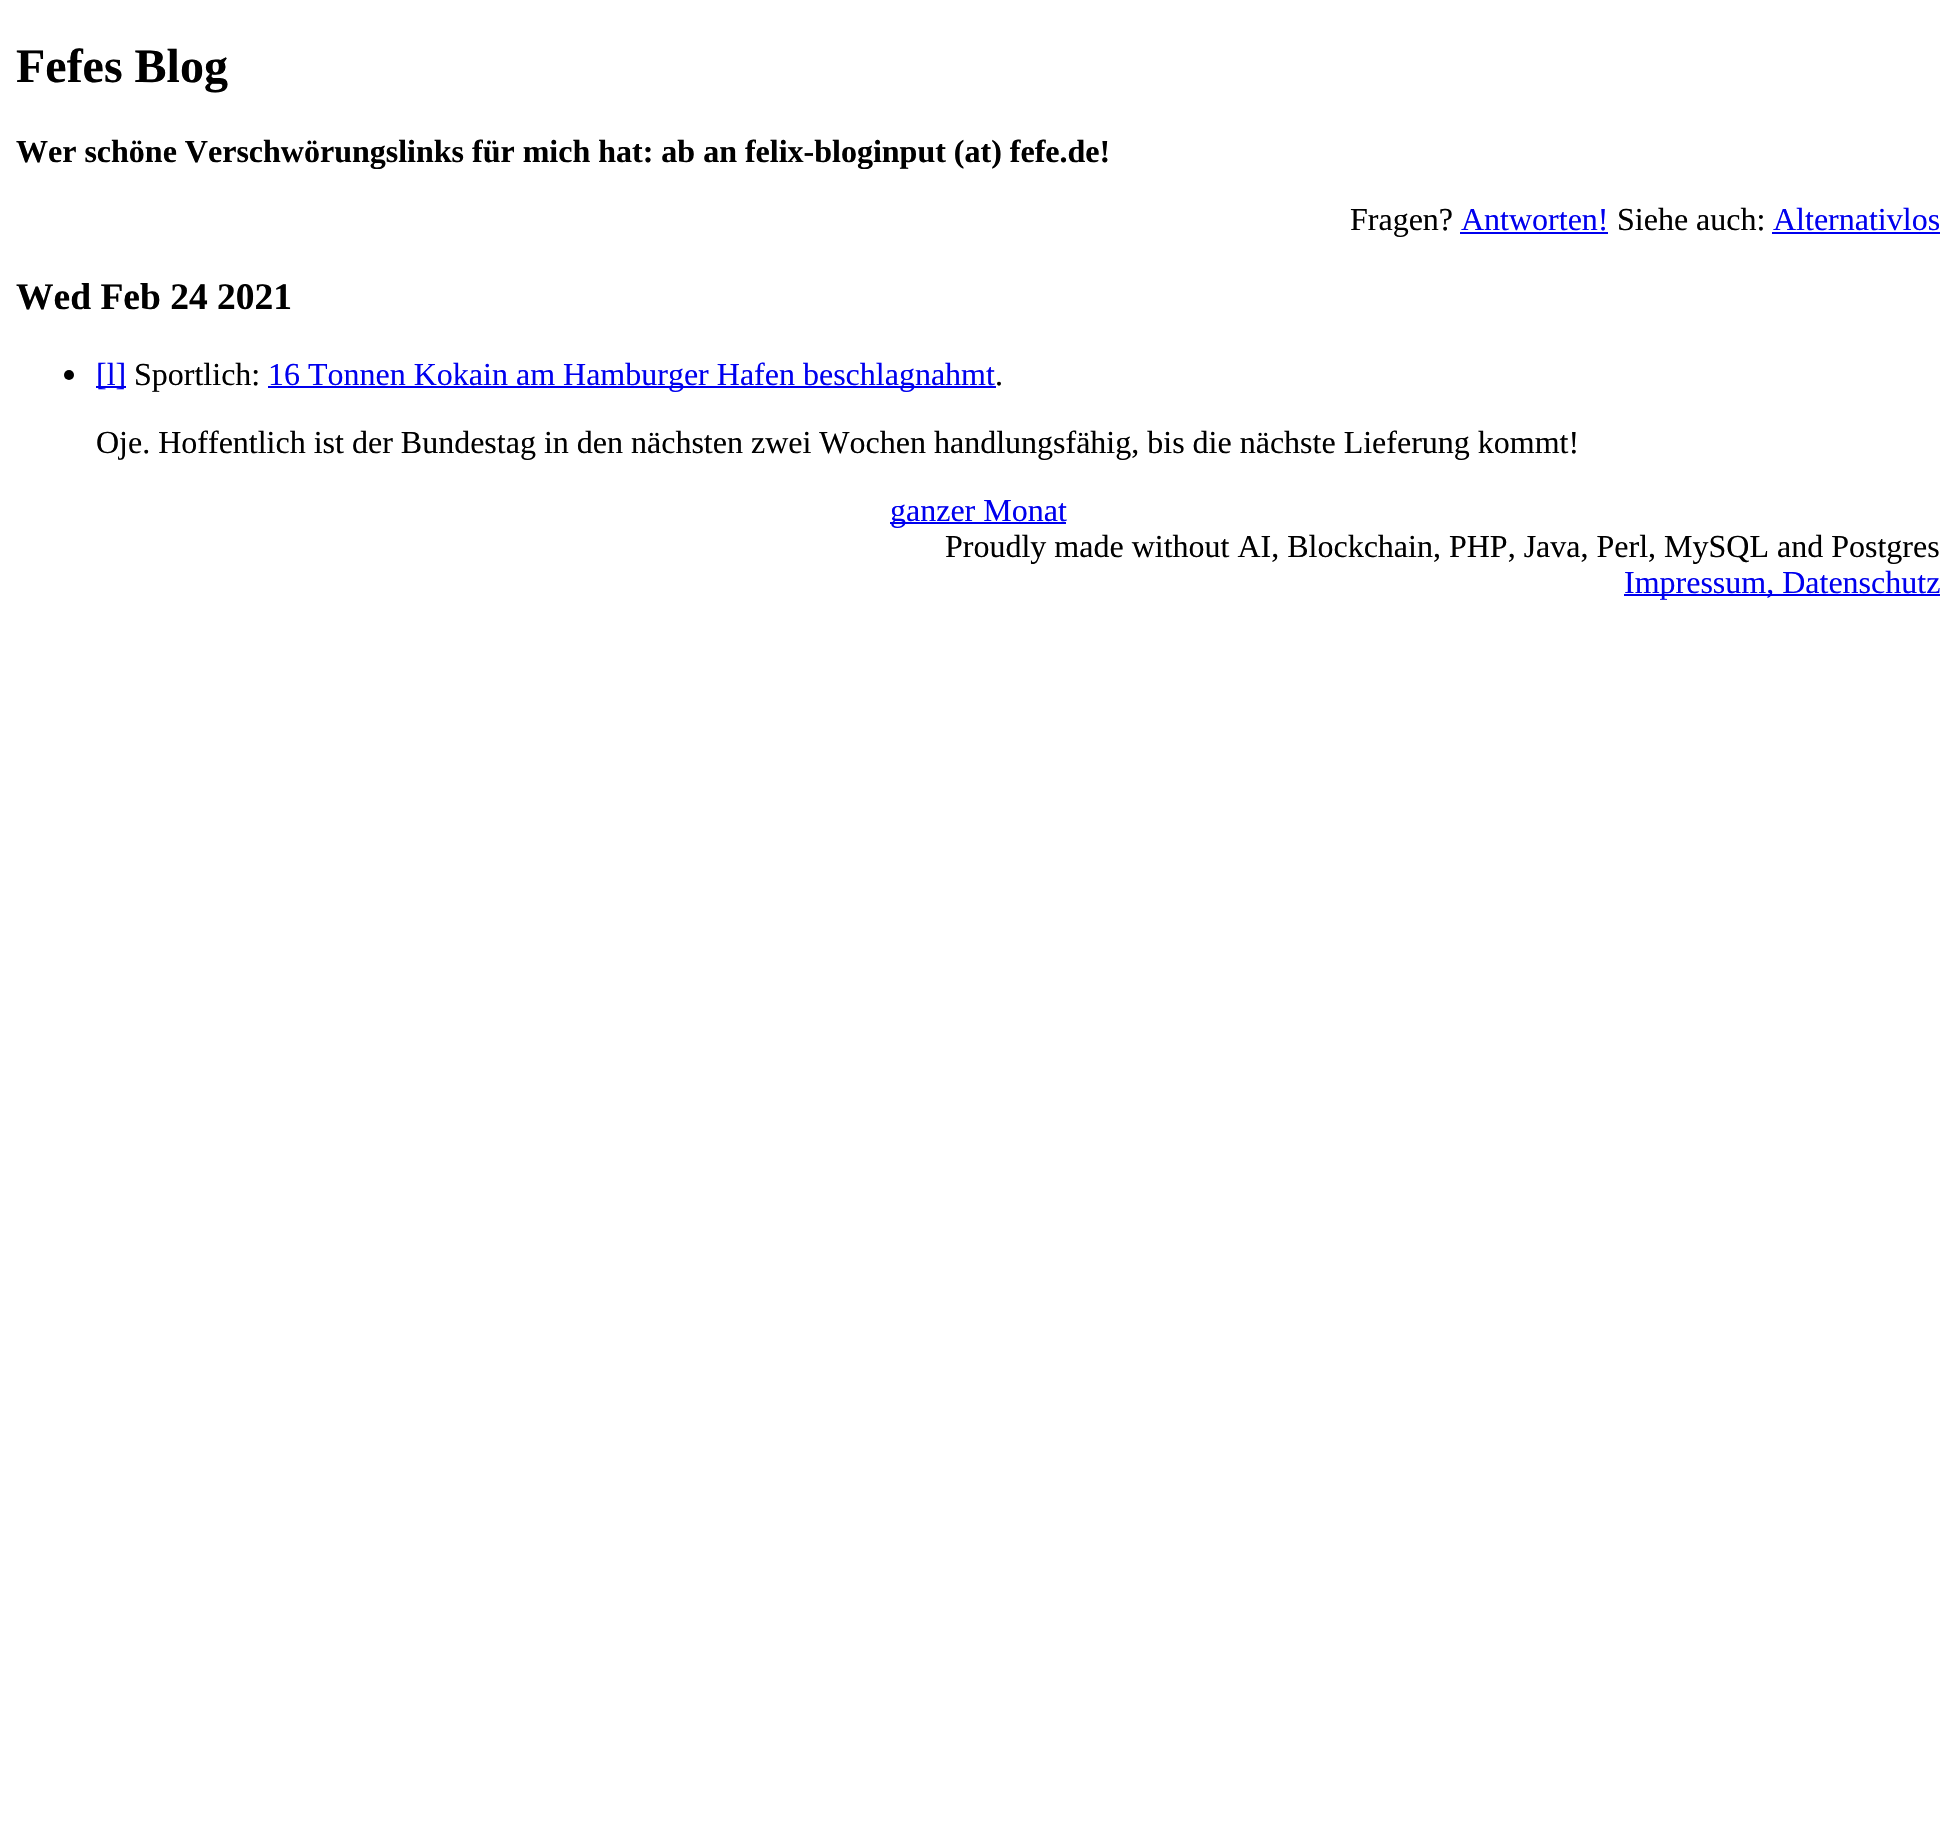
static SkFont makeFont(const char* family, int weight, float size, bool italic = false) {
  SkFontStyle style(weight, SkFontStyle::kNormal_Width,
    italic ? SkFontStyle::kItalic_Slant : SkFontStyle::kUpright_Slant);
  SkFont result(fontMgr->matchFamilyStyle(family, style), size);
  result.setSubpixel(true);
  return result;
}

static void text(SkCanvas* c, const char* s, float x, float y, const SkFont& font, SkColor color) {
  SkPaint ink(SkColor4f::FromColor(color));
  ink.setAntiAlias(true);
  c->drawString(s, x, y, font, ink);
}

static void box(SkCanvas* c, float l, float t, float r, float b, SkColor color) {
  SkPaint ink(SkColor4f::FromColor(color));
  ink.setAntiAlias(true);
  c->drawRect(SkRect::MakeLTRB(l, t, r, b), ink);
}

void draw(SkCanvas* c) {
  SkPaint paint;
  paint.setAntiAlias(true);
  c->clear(0xffffffff);
  SkFont face1 = makeFont("Liberation Serif", 700, 48);
  text(c, "Fefes Blog", 16, 82, face1, 0xff000000);
  SkFont face2 = makeFont("Liberation Serif", 700, 32);
  text(c, "Wer schöne Verschwörungslinks für mich hat: ab an felix-bloginput (at) fefe.de!", 16, 162, face2, 0xff000000);
  SkFont face3 = makeFont("Liberation Serif", 400, 32);
  text(c, "Fragen?", 1350, 230, face3, 0xff000000);
  text(c, "Antworten!", 1461, 230, face3, 0xff0000ee);
  box(c, 1460, 232, 1608, 234, 0xff0000ee);
  text(c, "Siehe auch:", 1617, 230, face3, 0xff000000);
  text(c, "Alternativlos", 1773, 230, face3, 0xff0000ee);
  box(c, 1772, 232, 1940, 234, 0xff0000ee);
  SkFont face4 = makeFont("Liberation Serif", 700, 37.5f);
  text(c, "Wed Feb 24 2021", 16, 309, face4, 0xff000000);
  paint.setColor(0xff000000);
  c->drawCircle(69, 375, 5, paint);
  box(c, 96, 386, 126, 388, 0xff0000ee);
  text(c, "[l]", 96, 385, face3, 0xff0000ee);
  text(c, "Sportlich:", 134, 385, face3, 0xff000000);
  box(c, 268, 386, 996, 388, 0xff0000ee);
  text(c, "16 Tonnen Kokain am Hamburger Hafen beschlagnahmt", 268, 385, face3, 0xff0000ee);
  text(c, ".", 995, 385, face3, 0xff000000);
  text(c, "Oje. Hoffentlich ist der Bundestag in den nächsten zwei Wochen handlungsfähig, bis die nächste Lieferung kommt!", 96, 453, face3, 0xff000000);
  box(c, 890, 522, 1066, 524, 0xff0000ee);
  text(c, "ganzer Monat", 890, 521, face3, 0xff0000ee);
  text(c, "Proudly made without AI, Blockchain, PHP, Java, Perl, MySQL and Postgres", 945, 557, face3, 0xff000000);
  box(c, 1624, 594, 1940, 596, 0xff0000ee);
  text(c, "Impressum, Datenschutz", 1624, 593, face3, 0xff0000ee);
}
